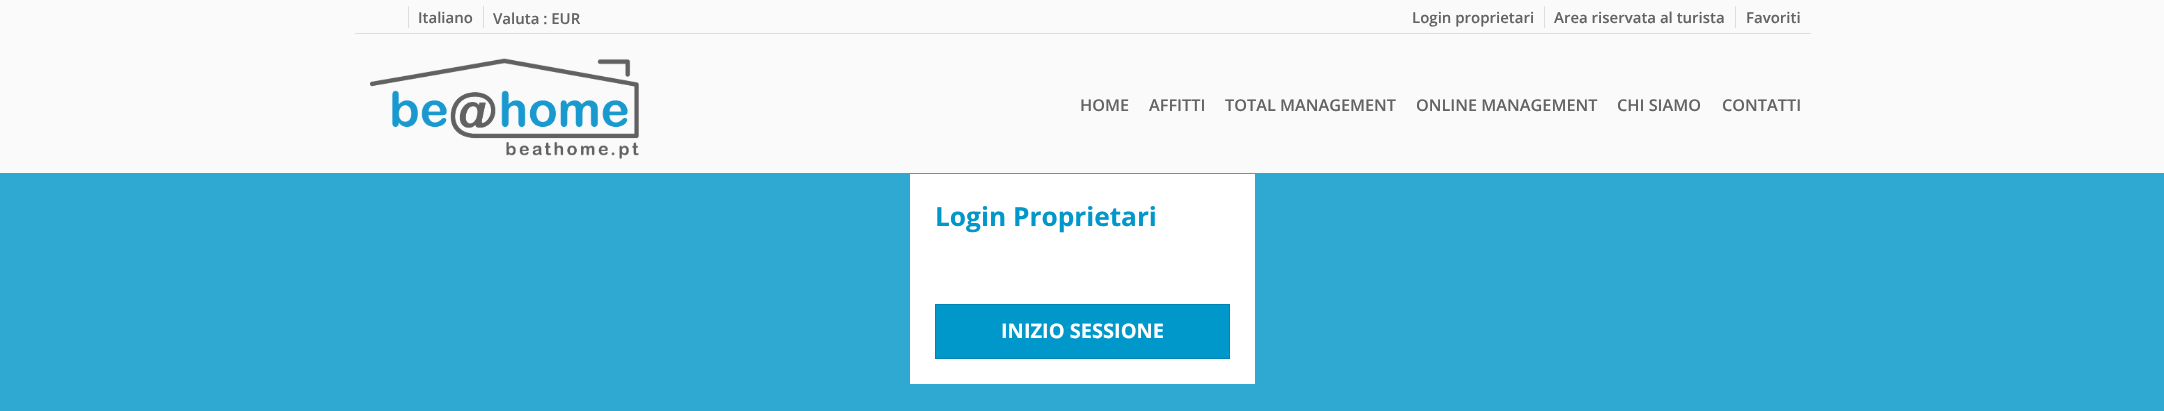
static SkFont makeFont(const char* family, int weight, float size, bool italic = false) {
  SkFontStyle style(weight, SkFontStyle::kNormal_Width,
    italic ? SkFontStyle::kItalic_Slant : SkFontStyle::kUpright_Slant);
  SkFont result(fontMgr->matchFamilyStyle(family, style), size);
  result.setSubpixel(true);
  return result;
}

static void text(SkCanvas* c, const char* s, float x, float y, const SkFont& font, SkColor color) {
  SkPaint ink(SkColor4f::FromColor(color));
  ink.setAntiAlias(true);
  c->drawString(s, x, y, font, ink);
}

static void box(SkCanvas* c, float l, float t, float r, float b, SkColor color) {
  SkPaint ink(SkColor4f::FromColor(color));
  ink.setAntiAlias(true);
  c->drawRect(SkRect::MakeLTRB(l, t, r, b), ink);
}

static void picture(SkCanvas* c, const char* path, float l, float t, float r, float b) {
  auto image = SkImages::DeferredFromEncodedData(SkData::MakeFromFileName(path));
  c->drawImageRect(image, SkRect::MakeLTRB(l, t, r, b), SkSamplingOptions());
}

void draw(SkCanvas* c) {
  SkPaint paint;
  paint.setAntiAlias(true);
  c->clear(0xfffafafa);
  box(c, 355, 33, 1811, 34, 0xffdadfe2);
  box(c, 408, 6, 409, 28, 0xffdadfe2);
  SkFont face1 = makeFont("Open Sans", 600, 15);
  text(c, "Italiano", 418, 23, face1, 0xff636364);
  box(c, 483, 6, 484, 28, 0xffdadfe2);
  text(c, "Valuta : EUR", 493, 24, face1, 0xff636364);
  text(c, "Login proprietari", 1412, 23, face1, 0xff636364);
  box(c, 1544, 6, 1545, 28, 0xffdadfe2);
  text(c, "Area riservata al turista", 1554, 23, face1, 0xff636364);
  box(c, 1735, 6, 1736, 28, 0xffdadfe2);
  text(c, "Favoriti", 1746, 23, face1, 0xff636364);
  picture(c, "img_01.png", 370, 58, 639, 159);
  SkFont face2 = makeFont("Open Sans", 600, 16.25f);
  text(c, "HOME", 1080, 111, face2, 0xff636364);
  text(c, "AFFITTI", 1149, 111, face2, 0xff636364);
  text(c, "TOTAL MANAGEMENT", 1225, 111, face2, 0xff636364);
  text(c, "ONLINE MANAGEMENT", 1416, 111, face2, 0xff636364);
  text(c, "CHI SIAMO", 1617, 111, face2, 0xff636364);
  text(c, "CONTATTI", 1722, 111, face2, 0xff636364);
  box(c, 0, 173, 2164, 411, 0xff30a9d2);
  box(c, 910, 174, 1255, 384, 0xffffffff);
  SkFont face3 = makeFont("Open Sans", 700, 26.25f);
  text(c, "Login Proprietari", 935, 226, face3, 0xff0097ca);
  paint.setColor(0xff0097ca);
  c->drawRect(SkRect::MakeLTRB(935.5f, 304.5f, 1229.5f, 358.5f), paint);
  paint.setStyle(SkPaint::kStroke_Style);
  paint.setStrokeWidth(1);
  paint.setColor(0xff0084b1);
  c->drawRect(SkRect::MakeLTRB(935.5f, 304.5f, 1229.5f, 358.5f), paint);
  SkFont face4 = makeFont("Open Sans", 700, 20);
  text(c, "INIZIO SESSIONE", 1001, 338, face4, 0xffffffff);
}
